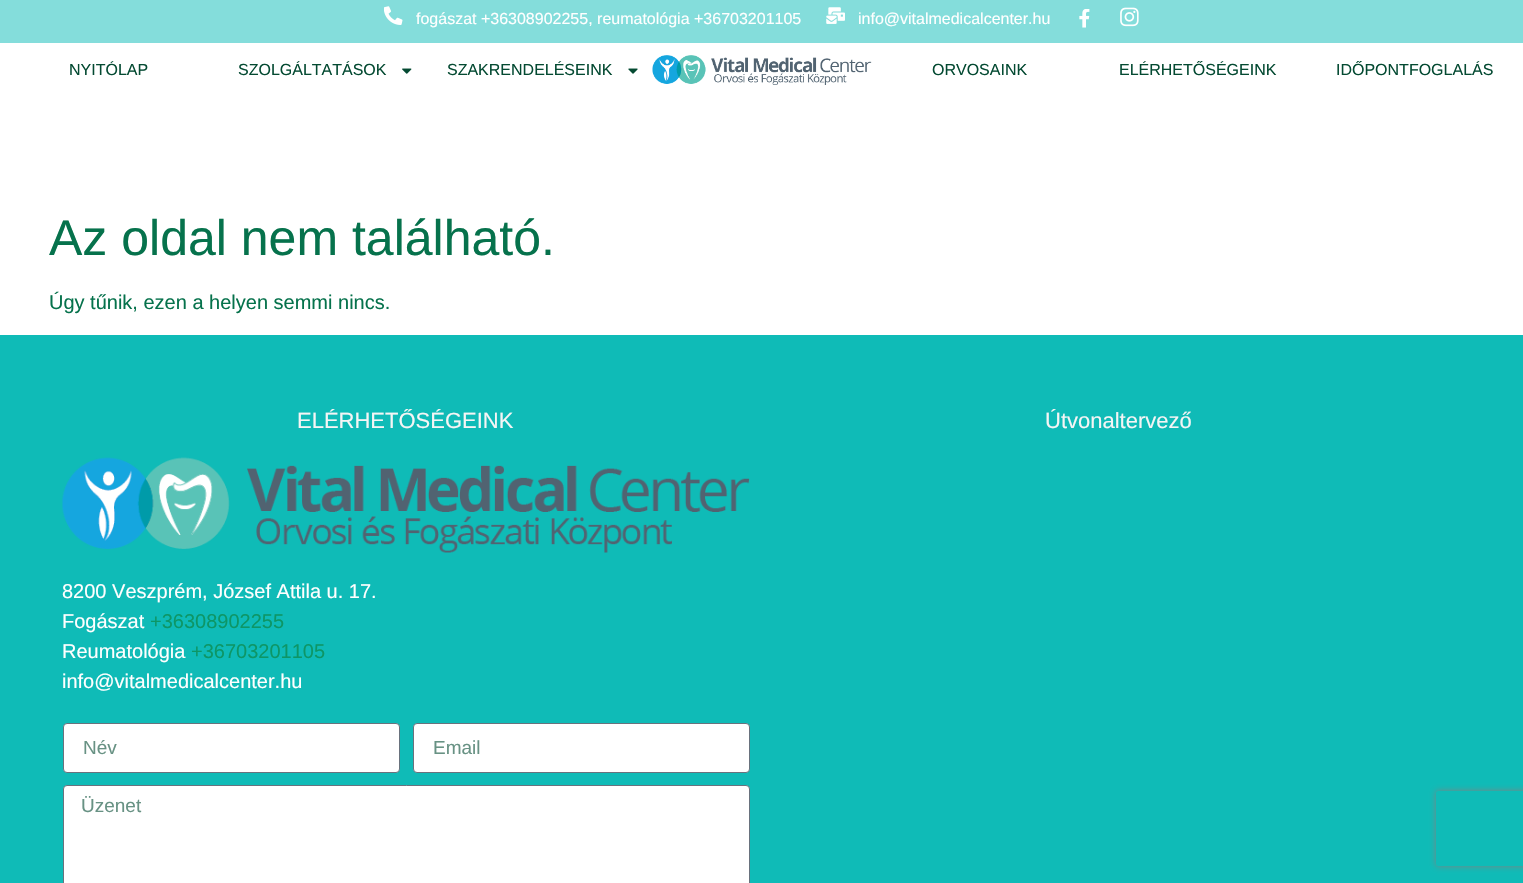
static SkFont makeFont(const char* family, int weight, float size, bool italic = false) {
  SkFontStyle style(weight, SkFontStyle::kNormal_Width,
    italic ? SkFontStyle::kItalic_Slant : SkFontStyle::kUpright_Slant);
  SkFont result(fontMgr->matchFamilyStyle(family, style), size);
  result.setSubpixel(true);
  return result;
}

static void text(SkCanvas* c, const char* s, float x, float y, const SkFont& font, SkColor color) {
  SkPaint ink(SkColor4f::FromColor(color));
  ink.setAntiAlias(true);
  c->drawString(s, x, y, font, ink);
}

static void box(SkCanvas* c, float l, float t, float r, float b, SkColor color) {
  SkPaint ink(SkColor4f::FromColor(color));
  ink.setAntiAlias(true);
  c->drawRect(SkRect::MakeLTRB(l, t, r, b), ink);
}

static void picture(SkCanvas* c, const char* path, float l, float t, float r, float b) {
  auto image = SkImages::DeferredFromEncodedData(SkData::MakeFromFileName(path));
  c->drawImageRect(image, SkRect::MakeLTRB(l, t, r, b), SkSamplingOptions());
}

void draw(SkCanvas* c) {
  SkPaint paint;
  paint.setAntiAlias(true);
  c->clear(0xffffffff);
  box(c, 0, 0, 1523, 43, 0xff84dddb);
  picture(c, "img_01.png", 384, 6, 403, 25);
  SkFont face1 = makeFont("Liberation Sans", 400, 16);
  text(c, "fogászat +36308902255, reumatológia +36703201105", 416, 24, face1, 0xffffffff);
  picture(c, "img_02.png", 826, 7, 845, 24);
  text(c, "info@vitalmedicalcenter.hu", 858, 24, face1, 0xffffffff);
  picture(c, "img_03.png", 1079, 9, 1090, 28);
  picture(c, "img_04.png", 1120, 7, 1139, 27);
  text(c, "NYITÓLAP", 69, 75, face1, 0xff044a32);
  text(c, "SZOLGÁLTATÁSOK", 238, 75, face1, 0xff044a32);
  picture(c, "img_05.png", 402, 68, 412, 74);
  text(c, "SZAKRENDELÉSEINK", 447, 75, face1, 0xff044a32);
  picture(c, "img_06.png", 628, 68, 638, 74);
  picture(c, "img_07.png", 652, 55, 872, 85);
  text(c, "ORVOSAINK", 932, 75, face1, 0xff044a32);
  text(c, "ELÉRHETŐSÉGEINK", 1119, 75, face1, 0xff044a32);
  text(c, "IDŐPONTFOGLALÁS", 1336, 75, face1, 0xff044a32);
  SkFont face2 = makeFont("Liberation Sans", 400, 50);
  text(c, "Az oldal nem található.", 49, 255, face2, 0xff06724c);
  SkFont face3 = makeFont("Liberation Sans", 400, 20);
  text(c, "Úgy tűnik, ezen a helyen semmi nincs.", 49, 309, face3, 0xff06724c);
  box(c, 0, 335, 1523, 883, 0xff0fbbb7);
  SkFont face4 = makeFont("Liberation Sans", 400, 22);
  text(c, "ELÉRHETŐSÉGEINK", 297, 428, face4, 0xfff5f5f5);
  picture(c, "img_08.png", 62, 457, 750, 553);
  text(c, "8200 Veszprém, József Attila u. 17.", 62, 598, face3, 0xffffffff);
  text(c, "Fogászat", 62, 628, face3, 0xffffffff);
  text(c, "+36308902255", 150, 628, face3, 0xff0d9666);
  text(c, "Reumatológia", 62, 658, face3, 0xffffffff);
  text(c, "+36703201105", 191, 658, face3, 0xff0d9666);
  text(c, "info@vitalmedicalcenter.hu", 62, 688, face3, 0xffffffff);
  paint.setColor(0xffffffff);
  c->drawRoundRect(SkRect::MakeLTRB(63.5f, 723.5f, 399.5f, 772.5f), 3.5f, 3.5f, paint);
  paint.setStyle(SkPaint::kStroke_Style);
  paint.setStrokeWidth(1);
  paint.setColor(0xff69727d);
  c->drawRoundRect(SkRect::MakeLTRB(63.5f, 723.5f, 399.5f, 772.5f), 3.5f, 3.5f, paint);
  SkFont face5 = makeFont("Liberation Sans", 400, 19);
  text(c, "Név", 83, 754, face5, 0xff689284);
  paint.setStyle(SkPaint::kFill_Style);
  paint.setColor(0xffffffff);
  c->drawRoundRect(SkRect::MakeLTRB(413.5f, 723.5f, 749.5f, 772.5f), 3.5f, 3.5f, paint);
  paint.setStyle(SkPaint::kStroke_Style);
  paint.setColor(0xff69727d);
  c->drawRoundRect(SkRect::MakeLTRB(413.5f, 723.5f, 749.5f, 772.5f), 3.5f, 3.5f, paint);
  text(c, "Email", 433, 754, face5, 0xff689284);
  paint.setStyle(SkPaint::kFill_Style);
  paint.setColor(0xffffffff);
  c->drawRoundRect(SkRect::MakeLTRB(63.5f, 785.5f, 749.5f, 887.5f), 3.5f, 3.5f, paint);
  paint.setStyle(SkPaint::kStroke_Style);
  paint.setColor(0xff69727d);
  c->drawRoundRect(SkRect::MakeLTRB(63.5f, 785.5f, 749.5f, 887.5f), 3.5f, 3.5f, paint);
  text(c, "Üzenet", 81, 812, face5, 0xff689284);
  c->save();
  c->clipPath(SkPathBuilder(SkPathFillType::kEvenOdd).moveTo(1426, 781).lineTo(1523, 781).lineTo(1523, 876).lineTo(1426, 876).close().moveTo(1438.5f, 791).lineTo(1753.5f, 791).cubicTo(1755, 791, 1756, 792, 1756, 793.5f).lineTo(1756, 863.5f).cubicTo(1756, 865, 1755, 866, 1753.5f, 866).lineTo(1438.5f, 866).cubicTo(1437, 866, 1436, 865, 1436, 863.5f).lineTo(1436, 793.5f).cubicTo(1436, 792, 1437, 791, 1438.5f, 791).close().detach(), true);
  paint.setStyle(SkPaint::kFill_Style);
  paint.setColor(0xff808080);
  paint.setMaskFilter(SkMaskFilter::MakeBlur(kNormal_SkBlurStyle, 3));
  c->drawRoundRect(SkRect::MakeLTRB(1436, 791, 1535, 866), 2.5f, 2.5f, paint);
  paint.setMaskFilter(nullptr);
  c->restore();
  text(c, "Útvonaltervező", 1045, 428, face4, 0xfff5f5f5);
}
